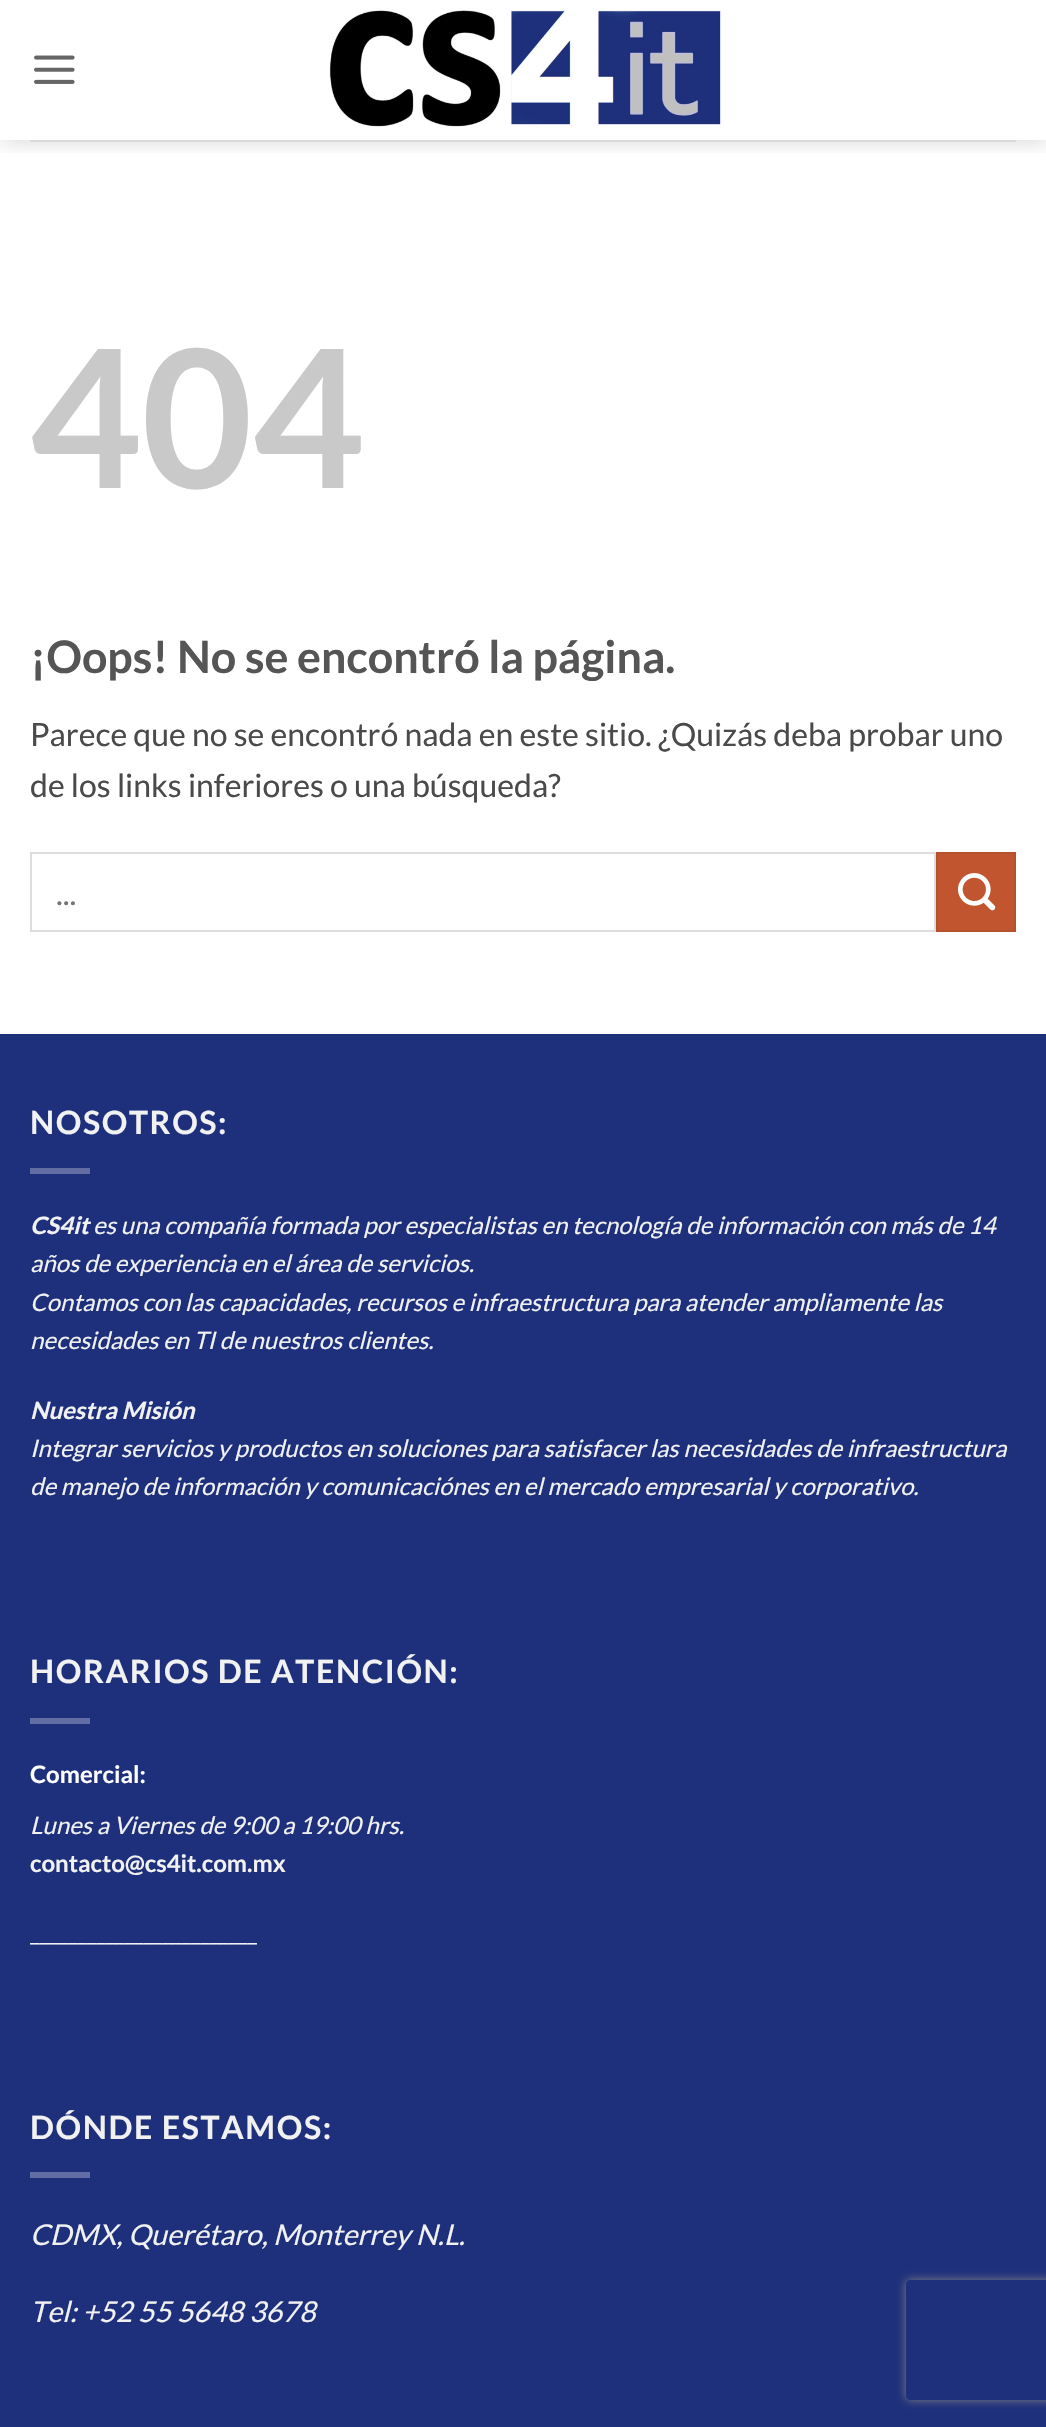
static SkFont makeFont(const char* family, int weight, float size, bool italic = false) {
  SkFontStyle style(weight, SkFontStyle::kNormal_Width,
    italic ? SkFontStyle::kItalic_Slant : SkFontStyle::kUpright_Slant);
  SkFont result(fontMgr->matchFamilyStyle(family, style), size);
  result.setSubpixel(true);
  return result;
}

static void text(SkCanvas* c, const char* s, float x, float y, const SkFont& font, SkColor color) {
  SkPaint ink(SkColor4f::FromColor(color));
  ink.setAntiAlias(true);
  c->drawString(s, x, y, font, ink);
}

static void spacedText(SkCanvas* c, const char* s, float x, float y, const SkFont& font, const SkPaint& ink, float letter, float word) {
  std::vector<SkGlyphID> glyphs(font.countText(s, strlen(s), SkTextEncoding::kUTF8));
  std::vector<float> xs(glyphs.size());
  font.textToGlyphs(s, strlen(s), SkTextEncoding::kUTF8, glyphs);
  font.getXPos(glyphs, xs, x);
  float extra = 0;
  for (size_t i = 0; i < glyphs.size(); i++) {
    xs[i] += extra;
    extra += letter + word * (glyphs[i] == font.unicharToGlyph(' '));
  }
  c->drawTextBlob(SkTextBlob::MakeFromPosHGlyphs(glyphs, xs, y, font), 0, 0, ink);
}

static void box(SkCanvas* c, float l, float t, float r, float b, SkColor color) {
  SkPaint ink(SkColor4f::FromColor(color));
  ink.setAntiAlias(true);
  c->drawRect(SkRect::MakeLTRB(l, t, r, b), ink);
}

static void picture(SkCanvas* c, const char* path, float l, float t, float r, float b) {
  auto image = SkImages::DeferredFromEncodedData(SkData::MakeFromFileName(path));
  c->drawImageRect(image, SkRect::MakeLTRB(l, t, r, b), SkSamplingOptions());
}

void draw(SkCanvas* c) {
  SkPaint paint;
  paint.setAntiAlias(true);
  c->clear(0xffffffff);
  c->save();
  c->clipRect(SkRect::MakeLTRB(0, 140, 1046, 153));
  paint.setColor(0x26000000);
  paint.setMaskFilter(SkMaskFilter::MakeBlur(kNormal_SkBlurStyle, 10));
  c->drawRect(SkRect::MakeLTRB(2, 2, 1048, 142), paint);
  paint.setMaskFilter(nullptr);
  c->restore();
  picture(c, "img_01.png", 34, 55, 75, 84);
  picture(c, "img_02.png", 329, 8, 722, 128);
  box(c, 30, 140, 1016, 142, 0xffdadada);
  SkFont face1 = makeFont("Lato", 700, 192);
  text(c, "404", 30, 488, face1, 0xffc9c9c9);
  SkFont face2 = makeFont("Lato", 700, 44.75f);
  text(c, "¡Oops! No se encontró la página.", 30, 673, face2, 0xff555555);
  SkFont face3 = makeFont("Lato", 400, 32);
  text(c, "Parece que no se encontró nada en este sitio. ¿Quizás deba probar uno", 30, 746, face3, 0xff4a4a4a);
  text(c, "de los links inferiores o una búsqueda?", 30, 797, face3, 0xff4a4a4a);
  paint.setStyle(SkPaint::kStroke_Style);
  paint.setStrokeWidth(2);
  paint.setColor(0xffdddddd);
  c->drawRect(SkRect::MakeLTRB(31, 853, 935, 931), paint);
  text(c, "...", 56, 905, face3, 0xff757575);
  paint.setStyle(SkPaint::kFill_Style);
  paint.setColor(0xffc05530);
  c->drawRect(SkRect::MakeLTRB(937, 853, 1015, 931), paint);
  paint.setStyle(SkPaint::kStroke_Style);
  paint.setColor(0xffb6512e);
  c->drawRect(SkRect::MakeLTRB(937, 853, 1015, 931), paint);
  picture(c, "img_03.png", 958, 873, 996, 911);
  box(c, 0, 1036, 1046, 2427, 0xff1e307c);
  box(c, 0, 1034, 1046, 1036, 0xff1d2e76);
  SkFont face4 = makeFont("Lato", 700, 32);
  paint.setStyle(SkPaint::kFill_Style);
  paint.setColor(0xfff1f1f1);
  spacedText(c, "NOSOTROS:", 30, 1134, face4, paint, 1.6f, 0);
  box(c, 30, 1168, 90, 1174, 0xff626ea3);
  SkFont face5 = makeFont("Lato", 700, 24, true);
  text(c, "CS4it", 30, 1234, face5, 0xfff1f1f1);
  SkFont face6 = makeFont("Lato", 400, 24, true);
  text(c, "es una compañía formada por especialistas en tecnología de información con más de 14", 93, 1234, face6, 0xfff1f1f1);
  text(c, "años de experiencia en el área de servicios.", 30, 1272, face6, 0xfff1f1f1);
  text(c, "Contamos con las capacidades, recursos e infraestructura para atender ampliamente las", 30, 1311, face6, 0xfff1f1f1);
  text(c, "necesidades en TI de nuestros clientes.", 30, 1349, face6, 0xfff1f1f1);
  text(c, "Nuestra Misión", 30, 1419, face5, 0xfff1f1f1);
  text(c, "Integrar servicios y productos en soluciones para satisfacer las necesidades de infraestructura", 30, 1457, face6, 0xfff1f1f1);
  text(c, "de manejo de información y comunicaciónes en el mercado empresarial y corporativo.", 30, 1495, face6, 0xfff1f1f1);
  spacedText(c, "HORARIOS DE ATENCIÓN:", 30, 1683, face4, paint, 1.6f, 0);
  box(c, 30, 1718, 90, 1724, 0xff626ea3);
  SkFont face7 = makeFont("Lato", 700, 24);
  text(c, "Comercial:", 30, 1783, face7, 0xffffffff);
  text(c, "Lunes a Viernes de 9:00 a 19:00 hrs.", 30, 1834, face6, 0xfff1f1f1);
  text(c, "contacto@cs4it.com.mx", 30, 1872, face7, 0xfff1f1f1);
  SkFont face8 = makeFont("Lato", 400, 24);
  text(c, "________________________", 30, 1941, face8, 0xfff1f1f1);
  spacedText(c, "DÓNDE ESTAMOS:", 30, 2139, face4, paint, 1.6f, 0);
  box(c, 30, 2172, 90, 2178, 0xff626ea3);
  SkFont face9 = makeFont("Lato", 400, 28.75f, true);
  text(c, "CDMX, Querétaro, Monterrey N.L.", 30, 2245, face9, 0xfff1f1f1);
  text(c, "Tel: +52 55 5648 3678", 30, 2322, face9, 0xfff1f1f1);
  c->save();
  c->clipPath(SkPathBuilder(SkPathFillType::kEvenOdd).moveTo(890, 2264).lineTo(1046, 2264).lineTo(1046, 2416).lineTo(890, 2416).close().moveTo(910, 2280).lineTo(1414, 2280).cubicTo(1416, 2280, 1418, 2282, 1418, 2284).lineTo(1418, 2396).cubicTo(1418, 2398, 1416, 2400, 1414, 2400).lineTo(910, 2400).cubicTo(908, 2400, 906, 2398, 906, 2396).lineTo(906, 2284).cubicTo(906, 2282, 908, 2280, 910, 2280).close().detach(), true);
  paint.setColor(0xff808080);
  paint.setMaskFilter(SkMaskFilter::MakeBlur(kNormal_SkBlurStyle, 5));
  c->drawRoundRect(SkRect::MakeLTRB(906, 2280, 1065, 2400), 4, 4, paint);
  paint.setMaskFilter(nullptr);
  c->restore();
}
